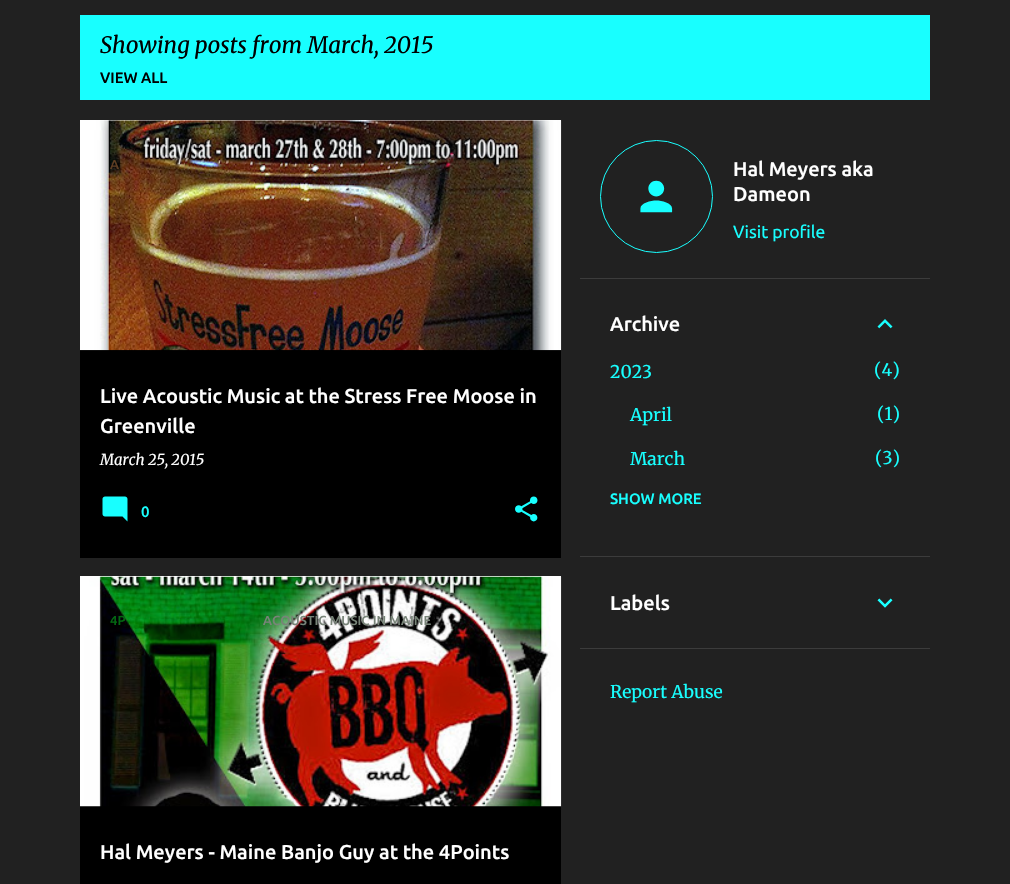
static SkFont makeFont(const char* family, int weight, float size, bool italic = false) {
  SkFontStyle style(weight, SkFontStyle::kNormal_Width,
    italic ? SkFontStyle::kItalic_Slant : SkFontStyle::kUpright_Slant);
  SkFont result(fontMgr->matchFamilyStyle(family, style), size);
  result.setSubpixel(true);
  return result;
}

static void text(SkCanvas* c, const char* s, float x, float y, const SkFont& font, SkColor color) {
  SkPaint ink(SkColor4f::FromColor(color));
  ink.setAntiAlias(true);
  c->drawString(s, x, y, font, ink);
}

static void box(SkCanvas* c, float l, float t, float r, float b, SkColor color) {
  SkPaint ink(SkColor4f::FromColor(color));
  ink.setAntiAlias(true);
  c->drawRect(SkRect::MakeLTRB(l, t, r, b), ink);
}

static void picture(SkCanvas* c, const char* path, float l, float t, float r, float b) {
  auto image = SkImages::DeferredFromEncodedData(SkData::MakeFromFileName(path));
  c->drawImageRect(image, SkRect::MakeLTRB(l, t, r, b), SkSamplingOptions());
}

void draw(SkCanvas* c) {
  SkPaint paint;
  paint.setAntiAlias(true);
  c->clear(0xff212121);
  box(c, 80, 15, 930, 100, 0xff18ffff);
  SkFont face1 = makeFont("Merriweather", 400, 22.5f, true);
  text(c, "Showing posts from March, 2015", 100, 53, face1, 0xff000000);
  SkFont face2 = makeFont("Ubuntu", 500, 15);
  text(c, "VIEW ALL", 100, 83, face2, 0xff000000);
  box(c, 80, 350, 561, 558, 0xff000000);
  box(c, 80, 120, 561, 121, 0xffffffff);
  picture(c, "img_01.png", 80, 120, 562, 351);
  SkFont face3 = makeFont("Ubuntu", 500, 13.1f);
  text(c, "A", 110, 169, face3, 0xff5d3d22);
  SkFont face4 = makeFont("Merriweather", 400, 15, true);
  text(c, "March 25, 2015", 100, 465, face4, 0xffffffff);
  SkFont face5 = makeFont("Ubuntu", 500, 20);
  text(c, "Live Acoustic Music at the Stress Free Moose in", 100, 403, face5, 0xffffffff);
  text(c, "Greenville", 100, 433, face5, 0xffffffff);
  picture(c, "img_02.png", 102, 496, 128, 522);
  text(c, "0", 141, 517, face2, 0xff18ffff);
  picture(c, "img_03.png", 515, 496, 538, 522);
  box(c, 80, 806, 561, 884, 0xff000000);
  box(c, 80, 576, 561, 577, 0xffffffff);
  picture(c, "img_04.png", 80, 576, 562, 807);
  text(c, "4P", 110, 625, face3, 0xff036811);
  text(c, "ACOUSTIC MUSIC IN MAINE", 263, 625, face3, 0xff788478);
  text(c, "Hal Meyers - Maine Banjo Guy at the 4Points", 100, 859, face5, 0xffffffff);
  paint.setStyle(SkPaint::kStroke_Style);
  paint.setStrokeWidth(1);
  paint.setColor(0xff18ffff);
  c->drawCircle(656.5f, 196.5f, 56, paint);
  picture(c, "img_05.png", 640, 180, 673, 213);
  text(c, "Hal Meyers aka", 733, 176, face5, 0xffffffff);
  text(c, "Dameon", 733, 201, face5, 0xffffffff);
  SkFont face6 = makeFont("Ubuntu", 400, 17.5f);
  text(c, "Visit profile", 733, 238, face6, 0xff18ffff);
  box(c, 580, 278, 930, 279, 0xff3c3c3c);
  text(c, "Archive", 610, 331, face5, 0xffffffff);
  picture(c, "img_06.png", 877, 319, 893, 329);
  SkFont face7 = makeFont("Merriweather", 300, 17.5f);
  text(c, "2023", 610, 378, face7, 0xff18ffff);
  text(c, "(4)", 874, 376, face7, 0xff18ffff);
  text(c, "April", 630, 421, face7, 0xff18ffff);
  text(c, "(1)", 877, 420, face7, 0xff18ffff);
  text(c, "March", 630, 465, face7, 0xff18ffff);
  text(c, "(3)", 875, 464, face7, 0xff18ffff);
  text(c, "SHOW MORE", 610, 504, face2, 0xff18ffff);
  box(c, 580, 556, 930, 557, 0xff3c3c3c);
  text(c, "Labels", 610, 610, face5, 0xffffffff);
  picture(c, "img_07.png", 877, 598, 893, 608);
  box(c, 580, 648, 930, 649, 0xff3c3c3c);
  text(c, "Report Abuse", 610, 698, face7, 0xff18ffff);
}
